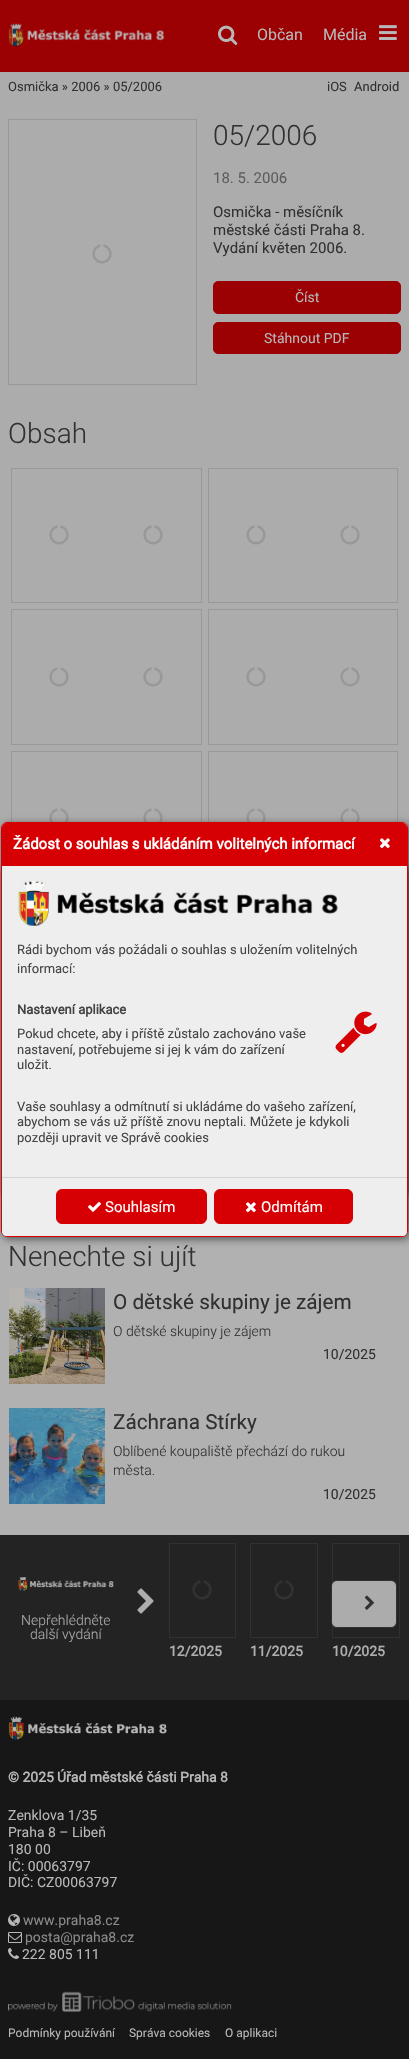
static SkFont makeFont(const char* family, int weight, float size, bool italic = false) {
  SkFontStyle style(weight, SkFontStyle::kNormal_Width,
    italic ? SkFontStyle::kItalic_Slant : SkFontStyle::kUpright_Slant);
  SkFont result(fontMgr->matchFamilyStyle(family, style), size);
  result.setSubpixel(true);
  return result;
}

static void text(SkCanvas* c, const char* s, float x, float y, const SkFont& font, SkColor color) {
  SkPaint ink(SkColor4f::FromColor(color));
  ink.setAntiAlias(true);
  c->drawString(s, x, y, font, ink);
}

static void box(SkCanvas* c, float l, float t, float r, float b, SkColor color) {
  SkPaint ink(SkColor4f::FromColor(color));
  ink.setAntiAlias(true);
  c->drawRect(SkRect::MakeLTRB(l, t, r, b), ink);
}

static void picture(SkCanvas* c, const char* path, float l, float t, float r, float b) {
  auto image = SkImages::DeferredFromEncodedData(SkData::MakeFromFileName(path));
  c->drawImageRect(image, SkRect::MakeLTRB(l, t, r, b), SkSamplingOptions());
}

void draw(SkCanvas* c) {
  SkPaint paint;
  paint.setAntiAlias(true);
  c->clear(0xffacacac);
  box(c, 0, 0, 409, 72, 0xff9b0003);
  picture(c, "img_01.png", 8, 23, 165, 47);
  picture(c, "img_02.png", 218, 25, 238, 45);
  SkFont face1 = makeFont("Roboto", 400, 16);
  text(c, "Občan", 257, 40, face1, 0xffb8b8b8);
  text(c, "Média", 323, 40, face1, 0xffb8b8b8);
  picture(c, "img_03.png", 379, 25, 397, 40);
  SkFont face2 = makeFont("Roboto", 400, 13);
  text(c, "Osmička » 2006 » 05/2006", 8, 91, face2, 0xff313131);
  text(c, "iOS", 327, 91, face2, 0xff313131);
  text(c, "Android", 354, 91, face2, 0xff313131);
  paint.setStyle(SkPaint::kStroke_Style);
  paint.setStrokeWidth(1);
  paint.setColor(0xff989898);
  c->drawRect(SkRect::MakeLTRB(8.5f, 119.5f, 196.5f, 384.5f), paint);
  picture(c, "img_04.png", 92, 244, 112, 264);
  SkFont face3 = makeFont("Roboto", 300, 28);
  text(c, "05/2006", 213, 145, face3, 0xff313131);
  SkFont face4 = makeFont("Roboto", 400, 15);
  text(c, "18. 5. 2006", 213, 183, face4, 0xff5d5d5d);
  text(c, "Osmička - měsíčník", 213, 217, face4, 0xff313131);
  text(c, "městské části Praha 8.", 213, 235, face4, 0xff313131);
  text(c, "Vydání květen 2006.", 213, 253, face4, 0xff313131);
  paint.setStyle(SkPaint::kFill_Style);
  paint.setColor(0xff9b0003);
  c->drawRoundRect(SkRect::MakeLTRB(213.5f, 281.5f, 400.5f, 313.5f), 4.5f, 4.5f, paint);
  paint.setStyle(SkPaint::kStroke_Style);
  c->drawRoundRect(SkRect::MakeLTRB(213.5f, 281.5f, 400.5f, 313.5f), 4.5f, 4.5f, paint);
  SkFont face5 = makeFont("Roboto", 400, 14);
  text(c, "Číst", 295, 302, face5, 0xffb8b8b8);
  paint.setStyle(SkPaint::kFill_Style);
  c->drawRoundRect(SkRect::MakeLTRB(213.5f, 322.5f, 400.5f, 353.5f), 4.5f, 4.5f, paint);
  paint.setStyle(SkPaint::kStroke_Style);
  c->drawRoundRect(SkRect::MakeLTRB(213.5f, 322.5f, 400.5f, 353.5f), 4.5f, 4.5f, paint);
  text(c, "Stáhnout PDF", 264, 343, face5, 0xffb8b8b8);
  text(c, "Obsah", 8, 443, face3, 0xff313131);
  paint.setColor(0xff989898);
  c->drawRect(SkRect::MakeLTRB(11.5f, 468.5f, 201.5f, 602.5f), paint);
  picture(c, "img_04.png", 49, 525, 69, 545);
  picture(c, "img_04.png", 143, 525, 163, 545);
  c->drawRect(SkRect::MakeLTRB(208.5f, 468.5f, 397.5f, 602.5f), paint);
  picture(c, "img_04.png", 246, 525, 266, 545);
  picture(c, "img_04.png", 340, 525, 360, 545);
  c->drawRect(SkRect::MakeLTRB(11.5f, 609.5f, 201.5f, 744.5f), paint);
  picture(c, "img_04.png", 49, 667, 69, 687);
  picture(c, "img_04.png", 143, 667, 163, 687);
  c->drawRect(SkRect::MakeLTRB(208.5f, 609.5f, 397.5f, 744.5f), paint);
  picture(c, "img_04.png", 246, 667, 266, 687);
  picture(c, "img_04.png", 340, 667, 360, 687);
  c->drawRect(SkRect::MakeLTRB(11.5f, 751.5f, 201.5f, 885.5f), paint);
  picture(c, "img_05.png", 49, 808, 69, 822);
  picture(c, "img_05.png", 143, 808, 163, 822);
  c->drawRect(SkRect::MakeLTRB(208.5f, 751.5f, 397.5f, 885.5f), paint);
  picture(c, "img_05.png", 246, 808, 266, 822);
  picture(c, "img_05.png", 340, 808, 360, 822);
  box(c, 0, 1232, 409, 1535, 0xffb1b1b1);
  text(c, "Nenechte si ujít", 8, 1266, face3, 0xff313131);
  picture(c, "img_06.png", 9, 1288, 105, 1384);
  SkFont face6 = makeFont("Roboto", 400, 20.75f);
  text(c, "O dětské skupiny je zájem", 113, 1309, face6, 0xff313131);
  SkFont face7 = makeFont("Roboto", 300, 14);
  text(c, "O dětské skupiny je zájem", 113, 1336, face7, 0xff313131);
  text(c, "10/2025", 323, 1359, face5, 0xff313131);
  picture(c, "img_07.png", 9, 1408, 105, 1504);
  text(c, "Záchrana Stírky", 113, 1429, face6, 0xff313131);
  text(c, "Oblíbené koupaliště přechází do rukou", 113, 1456, face7, 0xff313131);
  text(c, "města.", 113, 1475, face7, 0xff313131);
  text(c, "10/2025", 323, 1499, face5, 0xff313131);
  box(c, 0, 1535, 409, 1700, 0xff232323);
  paint.setColor(0xff313131);
  c->drawRect(SkRect::MakeLTRB(332.5f, 1543.5f, 399.5f, 1637.5f), paint);
  paint.setStyle(SkPaint::kFill_Style);
  paint.setColor(0xffacacac);
  c->drawRoundRect(SkRect::MakeLTRB(331.5f, 1580.5f, 396.5f, 1627.5f), 5.5f, 5.5f, paint);
  paint.setStyle(SkPaint::kStroke_Style);
  paint.setColor(0xff313131);
  c->drawRoundRect(SkRect::MakeLTRB(331.5f, 1580.5f, 396.5f, 1627.5f), 5.5f, 5.5f, paint);
  picture(c, "img_08.png", 364, 1595, 374, 1610);
  picture(c, "img_09.png", 137, 1588, 154, 1614);
  picture(c, "img_10.png", 18, 1577, 114, 1591);
  text(c, "Nepřehlédněte", 21, 1625, face7, 0xffadadad);
  text(c, "další vydání", 30, 1639, face7, 0xffadadad);
  c->drawRect(SkRect::MakeLTRB(169.5f, 1543.5f, 235.5f, 1637.5f), paint);
  picture(c, "img_11.png", 192, 1580, 212, 1600);
  SkFont face8 = makeFont("Roboto", 700, 14);
  text(c, "12/2025", 169, 1656, face8, 0xffadadad);
  c->drawRect(SkRect::MakeLTRB(250.5f, 1543.5f, 317.5f, 1637.5f), paint);
  picture(c, "img_11.png", 274, 1580, 294, 1600);
  text(c, "11/2025", 250, 1656, face8, 0xffadadad);
  text(c, "10/2025", 332, 1656, face8, 0xffadadad);
  box(c, 0, 1700, 409, 2059, 0xff171717);
  picture(c, "img_12.png", 8, 1716, 167, 1740);
  text(c, "© 2025", 8, 1782, face8, 0xffb8b8b8);
  text(c, "Úřad městské části Praha 8", 57, 1782, face8, 0xffb8b8b8);
  text(c, "Zenklova 1/35", 8, 1820, face5, 0xffb8b8b8);
  text(c, "Praha 8 – Libeň", 8, 1837, face5, 0xffb8b8b8);
  text(c, "180 00", 8, 1854, face5, 0xffb8b8b8);
  text(c, "IČ: 00063797", 8, 1871, face5, 0xffb8b8b8);
  text(c, "DIČ: CZ00063797", 8, 1887, face5, 0xffb8b8b8);
  picture(c, "img_13.png", 8, 1914, 20, 1926);
  text(c, "www.praha8.cz", 23, 1925, face5, 0xff8a8a8a);
  picture(c, "img_14.png", 8, 1932, 22, 1943);
  text(c, "posta@praha8.cz", 25, 1942, face5, 0xff8a8a8a);
  picture(c, "img_15.png", 8, 1948, 19, 1959);
  text(c, "222 805 111", 22, 1959, face5, 0xffb8b8b8);
  picture(c, "img_16.png", 8, 1991, 232, 2012);
  SkFont face9 = makeFont("Roboto", 400, 12);
  text(c, "Podmínky používání", 8, 2037, face9, 0xffb8b8b8);
  text(c, "Správa cookies", 129, 2037, face9, 0xffb8b8b8);
  text(c, "O aplikaci", 225, 2037, face9, 0xffb8b8b8);
  paint.setStyle(SkPaint::kFill_Style);
  paint.setColor(0x87000000);
  paint.setMaskFilter(SkMaskFilter::MakeBlur(kNormal_SkBlurStyle, 4));
  c->drawRoundRect(SkRect::MakeLTRB(3, 824, 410, 1239), 6, 6, paint);
  paint.setMaskFilter(nullptr);
  paint.setMaskFilter(SkMaskFilter::MakeBlur(kNormal_SkBlurStyle, 4));
  c->drawRoundRect(SkRect::MakeLTRB(3, 867, 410, 1196), 6, 6, paint);
  paint.setMaskFilter(nullptr);
  paint.setColor(0xffeeeeee);
  c->drawRoundRect(SkRect::MakeLTRB(1.5f, 822.5f, 407.5f, 1236.5f), 5.5f, 5.5f, paint);
  paint.setStyle(SkPaint::kStroke_Style);
  paint.setColor(0xffd60004);
  c->drawRoundRect(SkRect::MakeLTRB(1.5f, 822.5f, 407.5f, 1236.5f), 5.5f, 5.5f, paint);
  paint.setStyle(SkPaint::kFill_Style);
  c->drawPath(SkPathBuilder().moveTo(7, 823).lineTo(402, 823).cubicTo(405, 823, 407, 825, 407, 828).lineTo(407, 866).lineTo(2, 866).lineTo(2, 828).cubicTo(2, 825, 4, 823, 7, 823).close().detach(), paint);
  SkFont face10 = makeFont("Roboto", 700, 15);
  text(c, "Žádost o souhlas s ukládáním volitelných informací", 13, 849, face10, 0xffffffff);
  picture(c, "img_17.png", 380, 838, 390, 849);
  picture(c, "img_18.png", 18, 881, 338, 926);
  text(c, "Rádi bychom vás požádali o souhlas s uložením volitelných", 17, 954, face2, 0xff444444);
  text(c, "informací:", 17, 973, face2, 0xff444444);
  SkFont face11 = makeFont("Roboto", 700, 13);
  text(c, "Nastavení aplikace", 17, 1014, face11, 0xff444444);
  picture(c, "img_19.png", 335, 1011, 377, 1053);
  text(c, "Pokud chcete, aby i příště zůstalo zachováno vaše", 17, 1038, face2, 0xff444444);
  text(c, "nastavení, potřebujeme si jej k vám do zařízení", 17, 1054, face2, 0xff444444);
  text(c, "uložit.", 17, 1069, face2, 0xff444444);
  text(c, "Vaše souhlasy a odmítnutí si ukládáme do vašeho zařízení,", 17, 1111, face2, 0xff444444);
  text(c, "abychom se vás už příště znovu neptali. Můžete je kdykoli", 17, 1126, face2, 0xff444444);
  text(c, "později upravit ve Správě cookies", 17, 1142, face2, 0xff444444);
  paint.setColor(0xffeeeeee);
  c->drawPath(SkPathBuilder().moveTo(2, 1177).lineTo(407, 1177).lineTo(407, 1231).cubicTo(407, 1234, 405, 1236, 402, 1236).lineTo(7, 1236).cubicTo(4, 1236, 2, 1234, 2, 1231).close().detach(), paint);
  box(c, 2, 1177, 407, 1178, 0xffd3d3d3);
  paint.setColor(0xffd60004);
  c->drawRoundRect(SkRect::MakeLTRB(56.5f, 1189.5f, 206.5f, 1223.5f), 5.5f, 5.5f, paint);
  paint.setStyle(SkPaint::kStroke_Style);
  c->drawRoundRect(SkRect::MakeLTRB(56.5f, 1189.5f, 206.5f, 1223.5f), 5.5f, 5.5f, paint);
  picture(c, "img_20.png", 88, 1202, 101, 1212);
  text(c, "Souhlasím", 105, 1212, face4, 0xffffffff);
  paint.setStyle(SkPaint::kFill_Style);
  c->drawRoundRect(SkRect::MakeLTRB(214.5f, 1189.5f, 352.5f, 1223.5f), 5.5f, 5.5f, paint);
  paint.setStyle(SkPaint::kStroke_Style);
  c->drawRoundRect(SkRect::MakeLTRB(214.5f, 1189.5f, 352.5f, 1223.5f), 5.5f, 5.5f, paint);
  picture(c, "img_17.png", 246, 1202, 256, 1213);
  text(c, "Odmítám", 261, 1212, face4, 0xffffffff);
}
